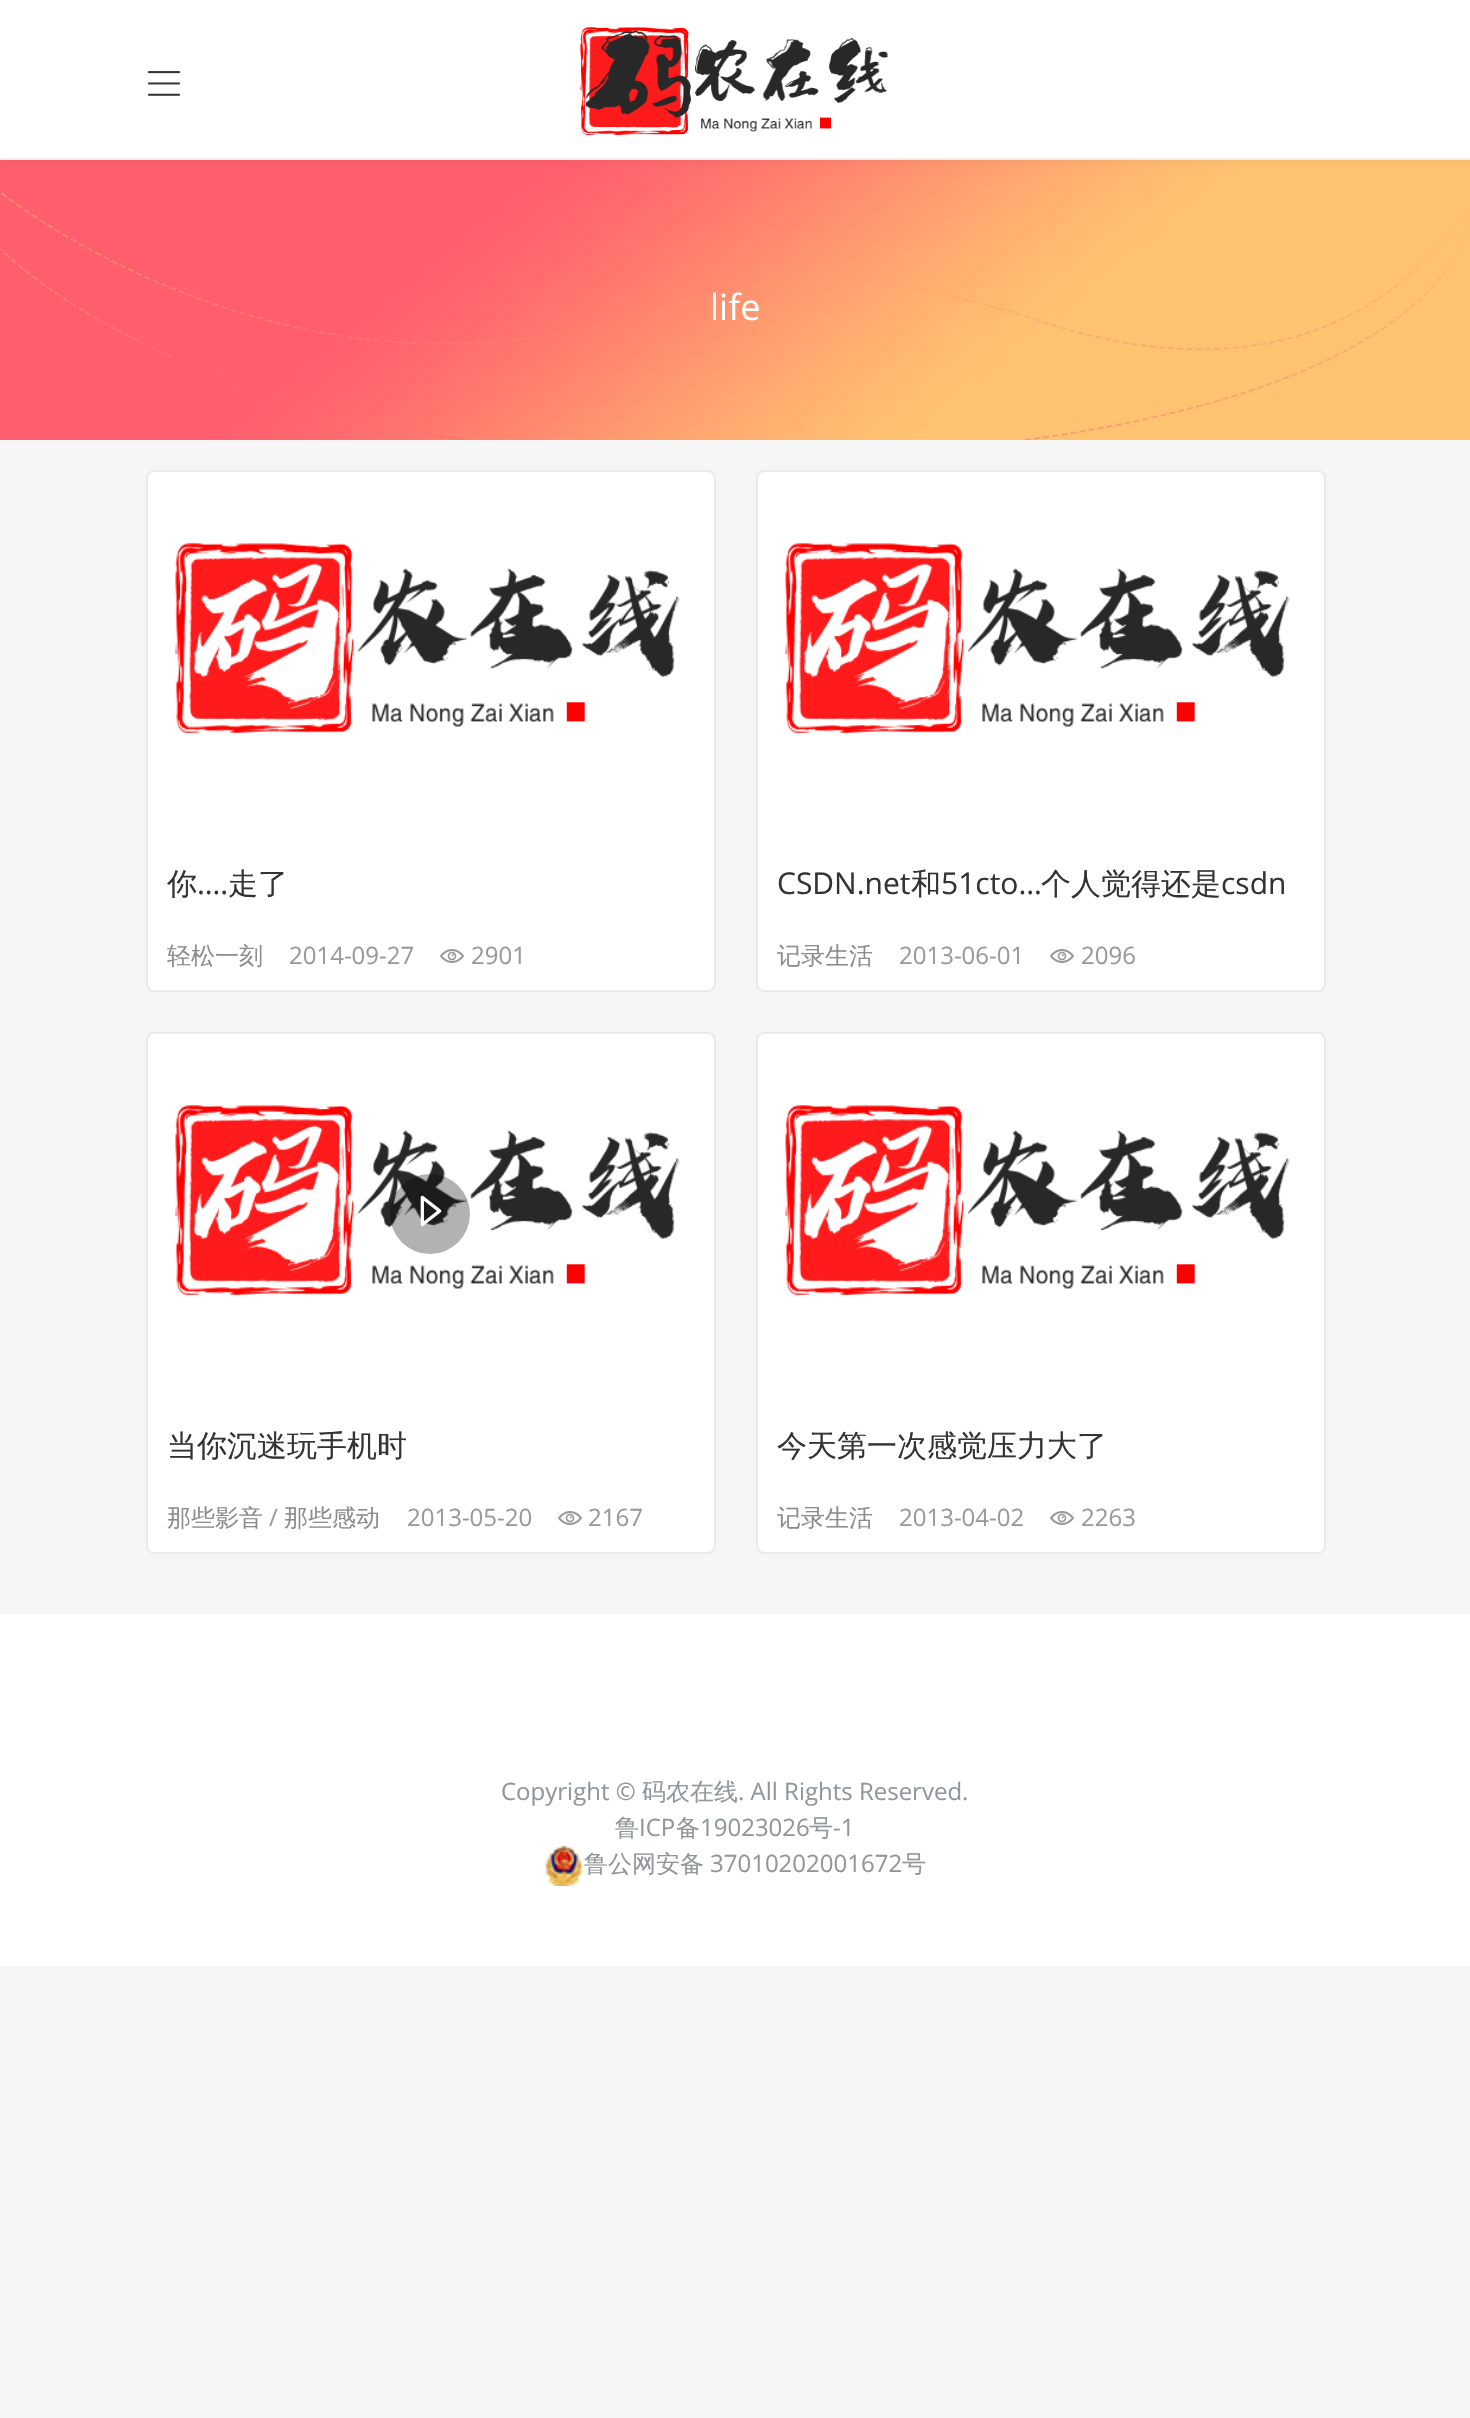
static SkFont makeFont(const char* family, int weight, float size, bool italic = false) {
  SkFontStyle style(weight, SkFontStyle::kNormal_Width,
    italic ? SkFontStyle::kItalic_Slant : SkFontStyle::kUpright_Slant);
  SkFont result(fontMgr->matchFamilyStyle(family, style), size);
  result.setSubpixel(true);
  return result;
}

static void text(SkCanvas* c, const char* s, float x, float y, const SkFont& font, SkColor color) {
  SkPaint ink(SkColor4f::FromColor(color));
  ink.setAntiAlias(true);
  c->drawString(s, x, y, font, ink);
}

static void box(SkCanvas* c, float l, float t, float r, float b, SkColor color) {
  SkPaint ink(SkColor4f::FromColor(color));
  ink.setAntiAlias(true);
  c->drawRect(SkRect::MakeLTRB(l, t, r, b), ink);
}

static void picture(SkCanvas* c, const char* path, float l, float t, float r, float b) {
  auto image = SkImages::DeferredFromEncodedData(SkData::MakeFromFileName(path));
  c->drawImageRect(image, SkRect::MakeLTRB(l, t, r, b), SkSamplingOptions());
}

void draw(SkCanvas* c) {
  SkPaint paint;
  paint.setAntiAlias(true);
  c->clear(0xfff6f6f6);
  picture(c, "img_03.png", 0, 160, 1470, 440);
  paint.setColor(0x0f000000);
  paint.setMaskFilter(SkMaskFilter::MakeBlur(kNormal_SkBlurStyle, 5));
  c->drawRect(SkRect::MakeLTRB(2, 0, 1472, 160), paint);
  paint.setMaskFilter(nullptr);
  box(c, 0, 0, 1470, 158, 0xffffffff);
  box(c, 0, 158, 4, 160, 0xffeeeeee);
  picture(c, "img_01.png", 147, 71, 181, 96);
  picture(c, "img_02.png", 580, 27, 889, 135);
  SkFont face1 = makeFont("Open Sans", 400, 36);
  text(c, "life", 710, 320, face1, 0xffffffff);
  paint.setColor(0xffffffff);
  c->drawRoundRect(SkRect::MakeLTRB(147, 471, 715, 991), 7, 7, paint);
  paint.setStyle(SkPaint::kStroke_Style);
  paint.setStrokeWidth(2);
  paint.setColor(0xffeaeaea);
  c->drawRoundRect(SkRect::MakeLTRB(147, 471, 715, 991), 7, 7, paint);
  picture(c, "img_04.png", 175, 543, 680, 733);
  SkFont face2 = makeFont("WenQuanYi Zen Hei", 500, 30);
  text(c, "你", 167, 894, face2, 0xff333333);
  SkFont face3 = makeFont("Open Sans", 400, 30);
  text(c, "….", 197, 894, face3, 0xff333333);
  text(c, "走了", 228, 894, face2, 0xff333333);
  SkFont face4 = makeFont("WenQuanYi Zen Hei", 500, 24);
  text(c, "轻松一刻", 167, 964, face4, 0xff8c8c8c);
  SkFont face5 = makeFont("Open Sans", 400, 24);
  text(c, "2014-09-27", 289, 964, face5, 0xff999999);
  picture(c, "img_05.png", 440, 949, 464, 963);
  text(c, "2901", 471, 964, face5, 0xff999999);
  paint.setStyle(SkPaint::kFill_Style);
  paint.setColor(0xffffffff);
  c->drawRoundRect(SkRect::MakeLTRB(757, 471, 1325, 991), 7, 7, paint);
  paint.setStyle(SkPaint::kStroke_Style);
  paint.setColor(0xffeaeaea);
  c->drawRoundRect(SkRect::MakeLTRB(757, 471, 1325, 991), 7, 7, paint);
  picture(c, "img_06.png", 785, 543, 1290, 733);
  text(c, "CSDN.net", 777, 894, face3, 0xff333333);
  text(c, "和", 911, 894, face2, 0xff333333);
  text(c, "51cto…", 941, 894, face3, 0xff333333);
  text(c, "个人觉得还是", 1041, 894, face2, 0xff333333);
  text(c, "csdn", 1221, 894, face3, 0xff333333);
  text(c, "记录生活", 777, 964, face4, 0xff8c8c8c);
  text(c, "2013-06-01", 899, 964, face5, 0xff999999);
  picture(c, "img_05.png", 1050, 949, 1074, 963);
  text(c, "2096", 1081, 964, face5, 0xff999999);
  paint.setStyle(SkPaint::kFill_Style);
  paint.setColor(0xffffffff);
  c->drawRoundRect(SkRect::MakeLTRB(147, 1033, 715, 1553), 7, 7, paint);
  paint.setStyle(SkPaint::kStroke_Style);
  paint.setColor(0xffeaeaea);
  c->drawRoundRect(SkRect::MakeLTRB(147, 1033, 715, 1553), 7, 7, paint);
  picture(c, "img_07.png", 175, 1105, 680, 1295);
  paint.setStyle(SkPaint::kFill_Style);
  paint.setColor(0x4d000000);
  c->drawCircle(430, 1214, 40, paint);
  picture(c, "img_08.png", 420, 1195, 442, 1227);
  text(c, "当你沉迷玩手机时", 167, 1456, face2, 0xff333333);
  text(c, "那些影音", 167, 1526, face4, 0xff8c8c8c);
  text(c, "/", 269, 1526, face5, 0xff999999);
  text(c, "那些感动", 284, 1526, face4, 0xff8c8c8c);
  text(c, "2013-05-20", 407, 1526, face5, 0xff999999);
  picture(c, "img_05.png", 558, 1511, 582, 1525);
  text(c, "2167", 588, 1526, face5, 0xff999999);
  paint.setColor(0xffffffff);
  c->drawRoundRect(SkRect::MakeLTRB(757, 1033, 1325, 1553), 7, 7, paint);
  paint.setStyle(SkPaint::kStroke_Style);
  paint.setColor(0xffeaeaea);
  c->drawRoundRect(SkRect::MakeLTRB(757, 1033, 1325, 1553), 7, 7, paint);
  picture(c, "img_09.png", 785, 1105, 1290, 1295);
  text(c, "今天第一次感觉压力大了", 777, 1456, face2, 0xff333333);
  text(c, "记录生活", 777, 1526, face4, 0xff8c8c8c);
  text(c, "2013-04-02", 899, 1526, face5, 0xff999999);
  picture(c, "img_05.png", 1050, 1511, 1074, 1525);
  text(c, "2263", 1081, 1526, face5, 0xff999999);
  box(c, 0, 1614, 1470, 1966, 0xffffffff);
  text(c, "Copyright ©", 501, 1800, face5, 0xff90969a);
  text(c, "码农在线", 642, 1800, face4, 0xff90969a);
  text(c, ". All Rights Reserved.", 738, 1800, face5, 0xff90969a);
  text(c, "鲁", 615, 1836, face4, 0xff90969a);
  text(c, "ICP", 639, 1836, face5, 0xff90969a);
  text(c, "备", 676, 1836, face4, 0xff90969a);
  text(c, "19023026", 700, 1836, face5, 0xff90969a);
  text(c, "号", 809, 1836, face4, 0xff90969a);
  text(c, "-1", 833, 1836, face5, 0xff90969a);
  picture(c, "img_10.png", 545, 1846, 583, 1886);
  text(c, "鲁公网安备", 584, 1872, face4, 0xff90969a);
  text(c, "37010202001672", 710, 1872, face5, 0xff90969a);
  text(c, "号", 902, 1872, face4, 0xff90969a);
}
